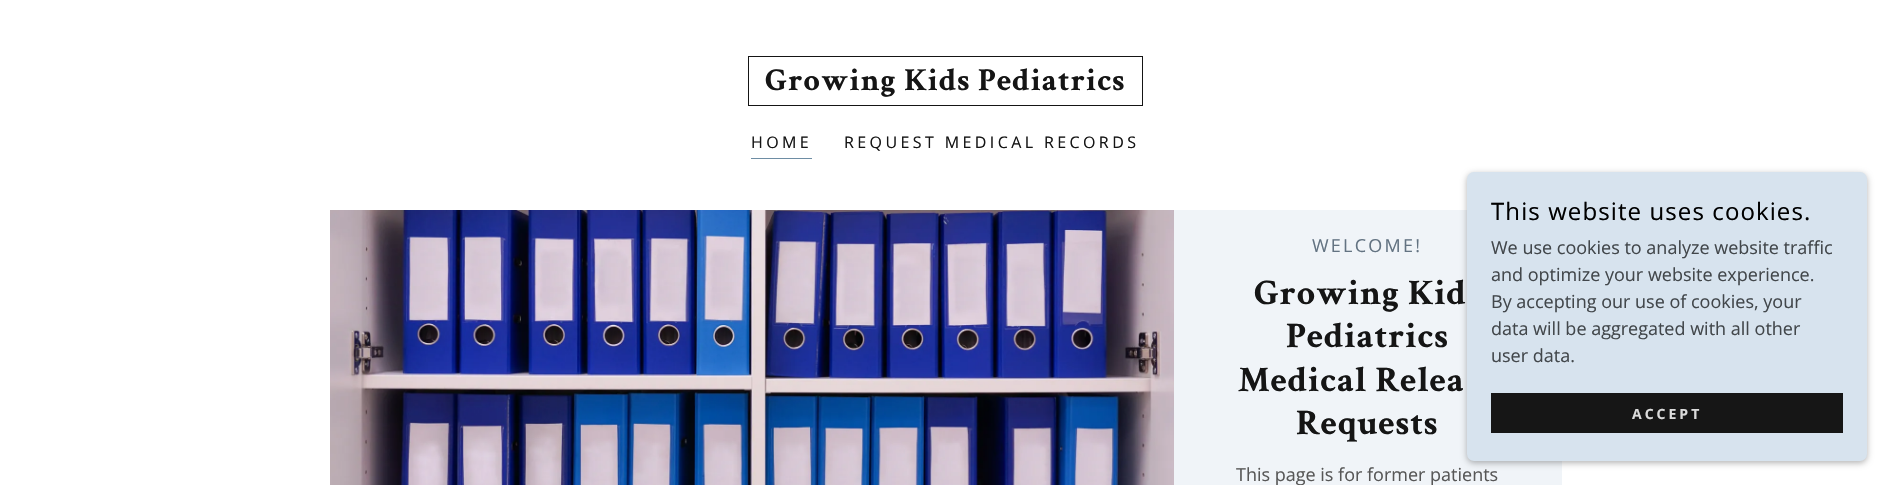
static SkFont makeFont(const char* family, int weight, float size, bool italic = false) {
  SkFontStyle style(weight, SkFontStyle::kNormal_Width,
    italic ? SkFontStyle::kItalic_Slant : SkFontStyle::kUpright_Slant);
  SkFont result(fontMgr->matchFamilyStyle(family, style), size);
  result.setSubpixel(true);
  return result;
}

static void text(SkCanvas* c, const char* s, float x, float y, const SkFont& font, SkColor color) {
  SkPaint ink(SkColor4f::FromColor(color));
  ink.setAntiAlias(true);
  c->drawString(s, x, y, font, ink);
}

static void spacedText(SkCanvas* c, const char* s, float x, float y, const SkFont& font, const SkPaint& ink, float letter, float word) {
  std::vector<SkGlyphID> glyphs(font.countText(s, strlen(s), SkTextEncoding::kUTF8));
  std::vector<float> xs(glyphs.size());
  font.textToGlyphs(s, strlen(s), SkTextEncoding::kUTF8, glyphs);
  font.getXPos(glyphs, xs, x);
  float extra = 0;
  for (size_t i = 0; i < glyphs.size(); i++) {
    xs[i] += extra;
    extra += letter + word * (glyphs[i] == font.unicharToGlyph(' '));
  }
  c->drawTextBlob(SkTextBlob::MakeFromPosHGlyphs(glyphs, xs, y, font), 0, 0, ink);
}

static void box(SkCanvas* c, float l, float t, float r, float b, SkColor color) {
  SkPaint ink(SkColor4f::FromColor(color));
  ink.setAntiAlias(true);
  c->drawRect(SkRect::MakeLTRB(l, t, r, b), ink);
}

static void roundBox(SkCanvas* c, float l, float t, float r, float b, float radius, SkColor color) {
  SkPaint ink(SkColor4f::FromColor(color));
  ink.setAntiAlias(true);
  c->drawRoundRect(SkRect::MakeLTRB(l, t, r, b), radius, radius, ink);
}

static void picture(SkCanvas* c, const char* path, float l, float t, float r, float b) {
  auto image = SkImages::DeferredFromEncodedData(SkData::MakeFromFileName(path));
  c->drawImageRect(image, SkRect::MakeLTRB(l, t, r, b), SkSamplingOptions());
}

void draw(SkCanvas* c) {
  SkPaint paint;
  paint.setAntiAlias(true);
  c->clear(0xffffffff);
  paint.setStyle(SkPaint::kStroke_Style);
  paint.setStrokeWidth(1);
  paint.setColor(0xff151515);
  c->drawRect(SkRect::MakeLTRB(748.5f, 56.5f, 1142.5f, 105.5f), paint);
  SkFont face1 = makeFont("Crimson Text", 700, 32);
  paint.setStyle(SkPaint::kFill_Style);
  spacedText(c, "Growing Kids Pediatrics", 765, 90, face1, paint, 1, 0);
  box(c, 751, 158, 812, 159, 0xff6e8da4);
  SkFont face2 = makeFont("Open Sans", 400, 16);
  spacedText(c, "HOME", 751, 148, face2, paint, 3.4f, 0);
  spacedText(c, "REQUEST MEDICAL RECORDS", 844, 148, face2, paint, 3.4f, 0);
  picture(c, "img_01.png", 330, 210, 1174, 485);
  box(c, 1174, 210, 1562, 485, 0xfff0f4f8);
  SkFont face3 = makeFont("Open Sans", 400, 18);
  paint.setColor(0xff637382);
  spacedText(c, "WELCOME!", 1312, 252, face3, paint, 2.25f, 0);
  SkFont face4 = makeFont("Crimson Text", 700, 36);
  paint.setColor(0xff151515);
  spacedText(c, "Growing Kid", 1254, 304, face4, paint, 0.8f, 0);
  spacedText(c, "Pediatrics", 1286, 347, face4, paint, 0.8f, 0);
  spacedText(c, "Medical Relea", 1238, 391, face4, paint, 0.8f, 0);
  spacedText(c, "Requests", 1296, 434, face4, paint, 0.8f, 0);
  text(c, "This page is for former patients", 1236, 481, face3, 0xff575757);
  paint.setColor(0x4d000000);
  paint.setMaskFilter(SkMaskFilter::MakeBlur(kNormal_SkBlurStyle, 3));
  c->drawRoundRect(SkRect::MakeLTRB(1467, 174, 1867, 463), 7, 7, paint);
  paint.setMaskFilter(nullptr);
  roundBox(c, 1467, 172, 1867, 461, 7, 0xffd7e3ee);
  SkFont face5 = makeFont("Open Sans", 400, 24);
  paint.setColor(0xff000000);
  spacedText(c, "This website uses cookies.", 1491, 220, face5, paint, 1.1f, 0);
  text(c, "We use cookies to analyze website traffic", 1491, 254, face3, 0xff42474b);
  text(c, "and optimize your website experience.", 1491, 281, face3, 0xff42474b);
  text(c, "By accepting our use of cookies, your", 1491, 308, face3, 0xff42474b);
  text(c, "data will be aggregated with all other", 1491, 335, face3, 0xff42474b);
  text(c, "user data.", 1491, 362, face3, 0xff42474b);
  box(c, 1491, 393, 1843, 433, 0xff161616);
  SkFont face6 = makeFont("Open Sans", 700, 14);
  paint.setColor(0xffdbdbdb);
  spacedText(c, "ACCEPT", 1632, 419, face6, paint, 3, 0);
}
